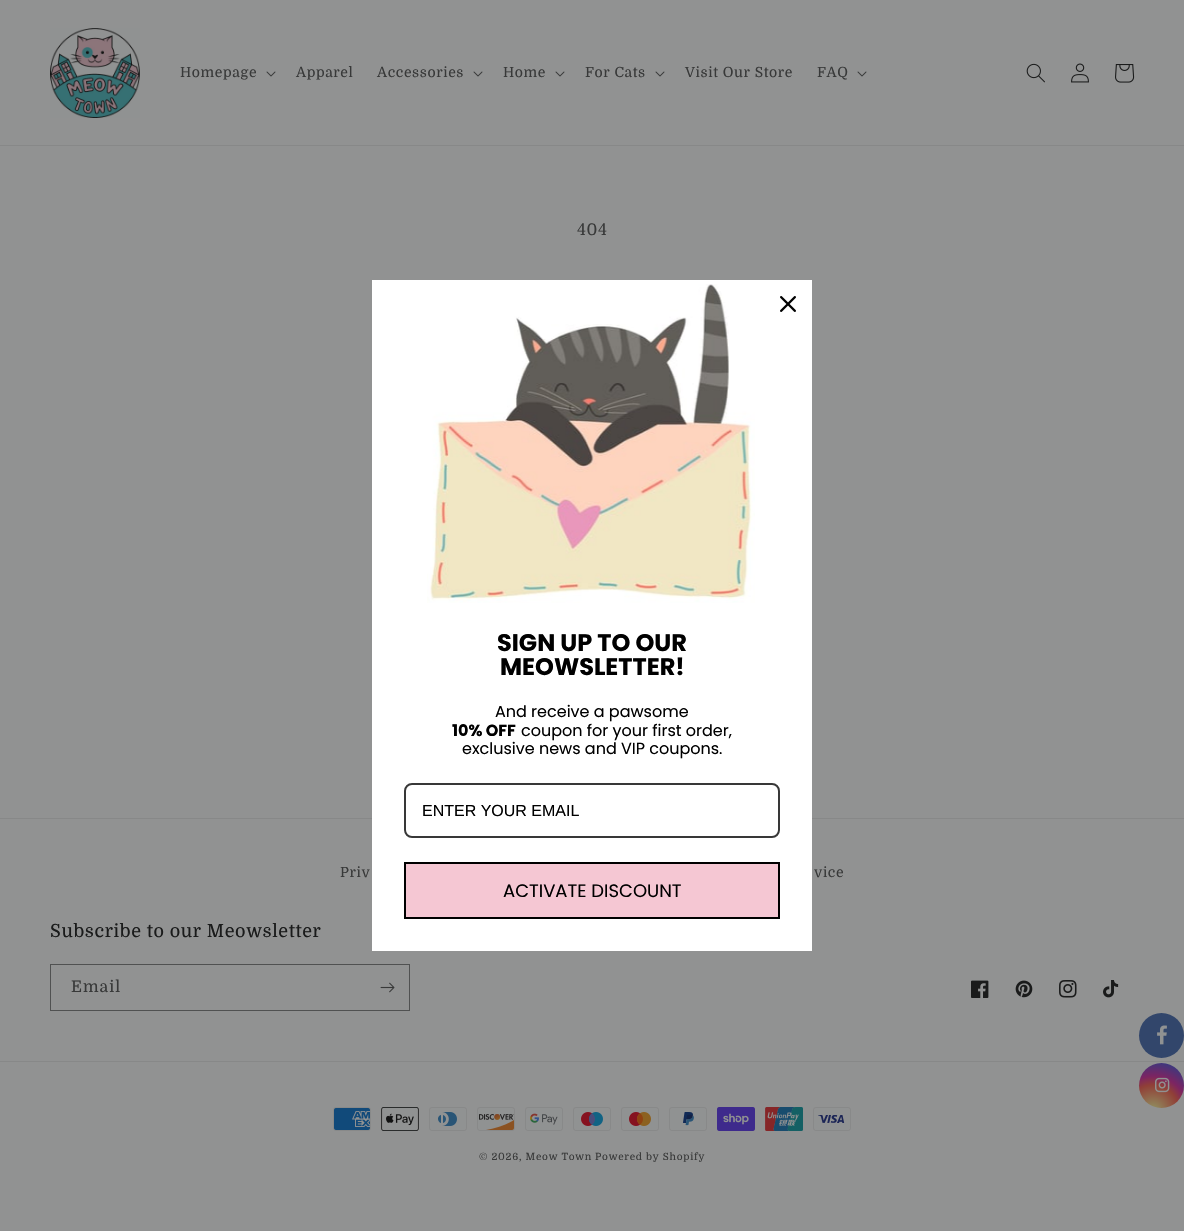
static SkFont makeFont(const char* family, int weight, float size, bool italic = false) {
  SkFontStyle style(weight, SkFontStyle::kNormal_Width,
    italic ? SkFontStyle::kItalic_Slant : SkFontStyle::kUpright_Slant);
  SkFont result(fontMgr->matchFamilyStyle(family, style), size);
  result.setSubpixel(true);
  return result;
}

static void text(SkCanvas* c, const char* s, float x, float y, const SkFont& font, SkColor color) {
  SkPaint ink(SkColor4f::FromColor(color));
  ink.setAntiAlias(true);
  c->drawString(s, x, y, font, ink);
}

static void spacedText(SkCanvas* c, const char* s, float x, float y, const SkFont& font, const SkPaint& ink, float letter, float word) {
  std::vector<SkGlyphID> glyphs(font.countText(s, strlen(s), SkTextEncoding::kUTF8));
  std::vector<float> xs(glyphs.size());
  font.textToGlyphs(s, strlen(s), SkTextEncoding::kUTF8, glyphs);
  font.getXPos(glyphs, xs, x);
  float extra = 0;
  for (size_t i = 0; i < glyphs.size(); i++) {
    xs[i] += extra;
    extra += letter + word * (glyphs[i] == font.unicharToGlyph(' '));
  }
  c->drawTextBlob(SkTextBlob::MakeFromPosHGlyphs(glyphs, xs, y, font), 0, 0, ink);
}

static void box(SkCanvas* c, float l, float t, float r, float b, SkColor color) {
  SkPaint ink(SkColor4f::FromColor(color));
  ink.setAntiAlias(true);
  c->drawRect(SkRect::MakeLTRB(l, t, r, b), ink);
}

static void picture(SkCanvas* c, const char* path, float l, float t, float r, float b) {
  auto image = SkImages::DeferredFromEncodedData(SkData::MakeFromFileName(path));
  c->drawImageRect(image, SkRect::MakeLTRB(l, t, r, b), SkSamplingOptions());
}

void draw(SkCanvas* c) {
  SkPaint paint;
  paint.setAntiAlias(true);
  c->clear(0xff919292);
  box(c, 0, 145, 1184, 146, 0xff878888);
  picture(c, "img_01.png", 50, 28, 140, 118);
  SkFont face1 = makeFont("Domine", 400, 14);
  paint.setColor(0xff383939);
  spacedText(c, "Homepage", 180, 77, face1, paint, 0.6f, 0);
  picture(c, "img_02.png", 266, 71, 276, 77);
  spacedText(c, "Apparel", 296, 77, face1, paint, 0.6f, 0);
  spacedText(c, "Accessories", 377, 77, face1, paint, 0.6f, 0);
  picture(c, "img_02.png", 473, 71, 483, 77);
  spacedText(c, "Home", 503, 77, face1, paint, 0.6f, 0);
  picture(c, "img_02.png", 555, 71, 565, 77);
  spacedText(c, "For Cats", 585, 77, face1, paint, 0.6f, 0);
  picture(c, "img_02.png", 655, 71, 665, 77);
  spacedText(c, "Visit Our Store", 685, 77, face1, paint, 0.6f, 0);
  spacedText(c, "FAQ", 817, 77, face1, paint, 0.6f, 0);
  picture(c, "img_02.png", 857, 71, 867, 77);
  picture(c, "img_03.png", 1026, 63, 1045, 83);
  picture(c, "img_04.png", 1071, 63, 1089, 83);
  picture(c, "img_05.png", 1115, 64, 1135, 83);
  SkFont face2 = makeFont("Domine", 400, 16);
  spacedText(c, "404", 577, 235, face2, paint, 0.6f, 0);
  box(c, 0, 818, 1184, 819, 0xff878888);
  box(c, 372, 280, 812, 951, 0xffffffff);
  picture(c, "img_06.png", 780, 296, 796, 312);
  picture(c, "img_07.png", 427, 284, 755, 603);
  SkFont face3 = makeFont("Poppins", 700, 24);
  text(c, "SIGN UP TO OUR", 497, 651, face3, 0xff000000);
  text(c, "MEOWSLETTER!", 500, 675, face3, 0xff000000);
  SkFont face4 = makeFont("Poppins", 400, 16);
  text(c, "And receive a pawsome", 495, 717, face4, 0xff000000);
  SkFont face5 = makeFont("Poppins", 700, 16);
  text(c, "10% OFF", 452, 736, face5, 0xff000000);
  text(c, "coupon for your first order,", 521, 736, face4, 0xff000000);
  text(c, "exclusive news and VIP coupons.", 462, 754, face4, 0xff000000);
  paint.setStyle(SkPaint::kStroke_Style);
  paint.setStrokeWidth(2);
  paint.setColor(0xff383838);
  c->drawRoundRect(SkRect::MakeLTRB(405, 784, 779, 837), 7, 7, paint);
  SkFont face6 = makeFont("Liberation Sans", 400, 16);
  text(c, "ENTER YOUR EMAIL", 422, 816, face6, 0xff000000);
  paint.setStyle(SkPaint::kFill_Style);
  paint.setColor(0xfff5c7d3);
  c->drawRect(SkRect::MakeLTRB(405, 863, 779, 918), paint);
  paint.setStyle(SkPaint::kStroke_Style);
  paint.setColor(0xff000000);
  c->drawRect(SkRect::MakeLTRB(405, 863, 779, 918), paint);
  SkFont face7 = makeFont("Poppins", 400, 18);
  text(c, "ACTIVATE DISCOUNT", 503, 897, face7, 0xff000000);
  paint.setStyle(SkPaint::kFill_Style);
  paint.setColor(0xff383939);
  spacedText(c, "Priv", 340, 877, face1, paint, 0.6f, 0);
  spacedText(c, "vice", 814, 877, face1, paint, 0.6f, 0);
  SkFont face8 = makeFont("Domine", 400, 18);
  paint.setColor(0xff1a1b1b);
  spacedText(c, "Subscribe to our Meowsletter", 50, 937, face8, paint, 0.6f, 0);
  paint.setStyle(SkPaint::kStroke_Style);
  paint.setStrokeWidth(1);
  paint.setColor(0xff505151);
  c->drawRect(SkRect::MakeLTRB(50.5f, 964.5f, 409.5f, 1010.5f), paint);
  paint.setStyle(SkPaint::kFill_Style);
  paint.setColor(0xff383939);
  spacedText(c, "Email", 71, 992, face2, paint, 1, 0);
  picture(c, "img_08.png", 380, 982, 395, 993);
  picture(c, "img_09.png", 971, 980, 989, 998);
  picture(c, "img_10.png", 1015, 980, 1033, 998);
  picture(c, "img_11.png", 1059, 980, 1077, 998);
  picture(c, "img_12.png", 1103, 980, 1119, 998);
  box(c, 0, 1061, 1184, 1062, 0xff878888);
  picture(c, "img_13.png", 333, 1107, 371, 1131);
  picture(c, "img_14.png", 381, 1107, 419, 1131);
  picture(c, "img_15.png", 429, 1107, 467, 1131);
  picture(c, "img_16.png", 477, 1107, 515, 1131);
  picture(c, "img_17.png", 525, 1107, 563, 1131);
  picture(c, "img_18.png", 573, 1107, 611, 1131);
  picture(c, "img_19.png", 621, 1107, 659, 1131);
  picture(c, "img_20.png", 669, 1107, 707, 1131);
  picture(c, "img_21.png", 717, 1107, 755, 1131);
  picture(c, "img_22.png", 765, 1107, 803, 1131);
  picture(c, "img_23.png", 813, 1107, 851, 1131);
  SkFont face9 = makeFont("Domine", 400, 10);
  spacedText(c, "© 2026, Meow Town", 479, 1160, face9, paint, 0.75f, 0);
  spacedText(c, "Powered by Shopify", 595, 1160, face9, paint, 0.75f, 0);
  paint.setColor(0xff32466b);
  c->drawCircle(1161.5f, 1035.5f, 22.5f, paint);
  picture(c, "img_24.png", 1157, 1025, 1167, 1045);
  {
    const SkColor colors[] = {0xff908c5e, 0xff908c5e, 0xff903f37, 0xff7c2462, 0xff253f88};
    const float stops[] = {0, 0.05f, 0.45f, 0.6f, 0.95f};
    paint.setShader(SkGradientShader::MakeRadial({1153, 1111}, 58, colors, stops, 5, SkTileMode::kClamp));
    paint.setAlpha(255);
  }
  c->drawCircle(1161.5f, 1085.5f, 22.5f, paint);
  picture(c, "img_25.png", 1155, 1077, 1170, 1093);
}
